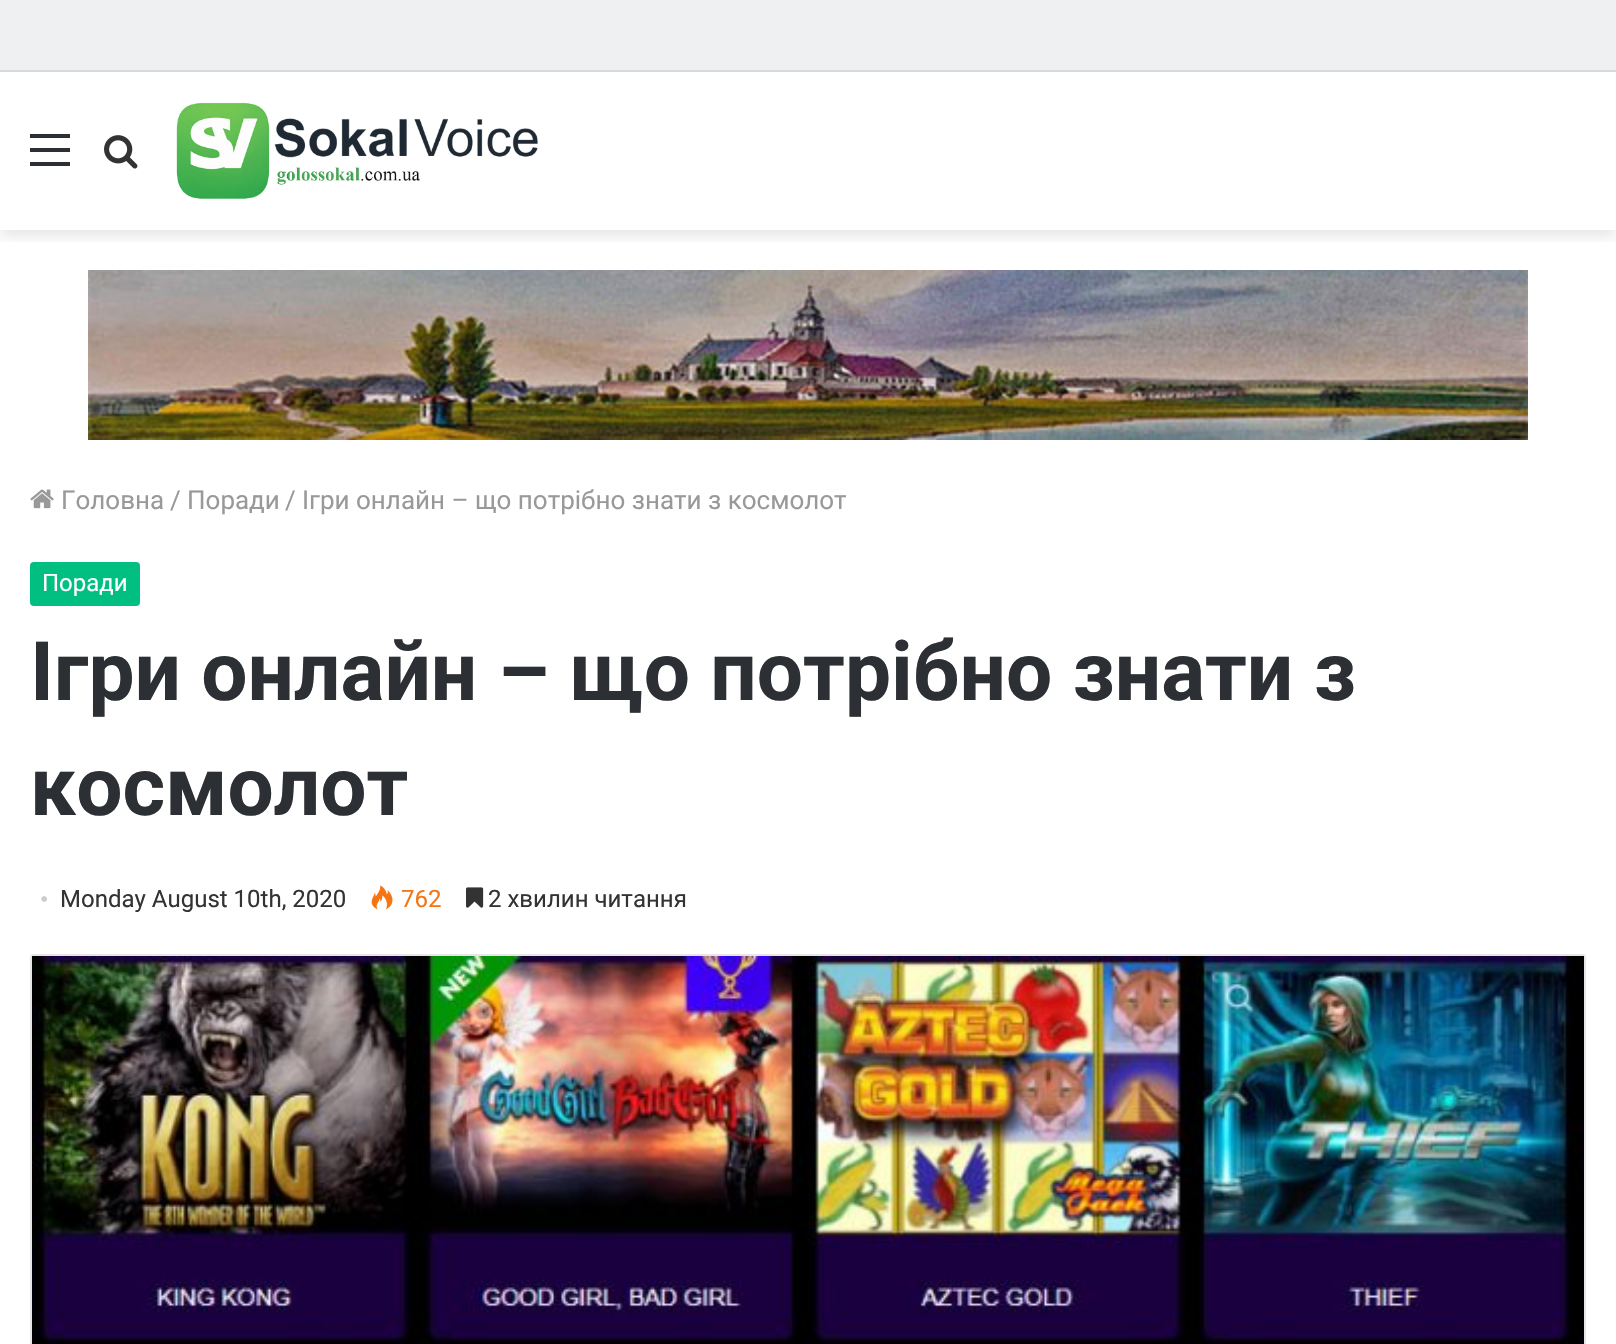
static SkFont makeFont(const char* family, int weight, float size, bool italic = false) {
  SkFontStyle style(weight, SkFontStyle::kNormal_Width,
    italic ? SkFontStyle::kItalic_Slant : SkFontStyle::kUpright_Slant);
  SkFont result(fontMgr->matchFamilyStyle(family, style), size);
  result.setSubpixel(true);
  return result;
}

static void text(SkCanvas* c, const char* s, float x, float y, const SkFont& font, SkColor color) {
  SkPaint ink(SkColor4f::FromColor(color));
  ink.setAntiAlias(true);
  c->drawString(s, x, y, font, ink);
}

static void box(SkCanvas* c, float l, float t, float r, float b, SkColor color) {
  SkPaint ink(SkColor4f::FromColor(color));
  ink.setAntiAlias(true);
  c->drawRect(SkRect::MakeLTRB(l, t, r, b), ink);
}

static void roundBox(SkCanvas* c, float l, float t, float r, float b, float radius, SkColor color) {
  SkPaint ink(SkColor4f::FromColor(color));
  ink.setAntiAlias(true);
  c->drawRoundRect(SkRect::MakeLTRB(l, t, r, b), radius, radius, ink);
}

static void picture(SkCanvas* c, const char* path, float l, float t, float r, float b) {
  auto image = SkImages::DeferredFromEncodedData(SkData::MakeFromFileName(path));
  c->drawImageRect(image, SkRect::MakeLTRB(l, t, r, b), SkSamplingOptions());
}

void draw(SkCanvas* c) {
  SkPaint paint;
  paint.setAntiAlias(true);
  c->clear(0xffffffff);
  c->save();
  c->clipRect(SkRect::MakeLTRB(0, 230, 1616, 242));
  paint.setColor(0x1a000000);
  paint.setMaskFilter(SkMaskFilter::MakeBlur(kNormal_SkBlurStyle, 7));
  c->drawRect(SkRect::MakeLTRB(0, 78, 1616, 236), paint);
  paint.setMaskFilter(nullptr);
  c->restore();
  box(c, 0, 0, 1616, 70, 0xffeff0f1);
  box(c, 0, 70, 1616, 72, 0xffd7d8d9);
  box(c, 30, 148, 70, 152, 0xff2c2f34);
  box(c, 30, 134, 70, 138, 0xff2c2f34);
  box(c, 30, 162, 70, 166, 0xff2c2f34);
  picture(c, "img_01.png", 104, 135, 138, 169);
  picture(c, "img_02.png", 176, 102, 538, 199);
  picture(c, "img_03.png", 88, 270, 1528, 440);
  picture(c, "img_04.png", 30, 489, 54, 509);
  SkFont face1 = makeFont("Roboto", 400, 26);
  text(c, "Головна", 61, 509, face1, 0xff999999);
  text(c, "/", 170, 509, face1, 0xff999999);
  text(c, "Поради", 187, 509, face1, 0xff999999);
  text(c, "/", 285, 509, face1, 0xff999999);
  text(c, "Ігри онлайн – що потрібно знати з космолот", 302, 509, face1, 0xff999999);
  roundBox(c, 30, 562, 140, 606, 4, 0xff00bf80);
  SkFont face2 = makeFont("Roboto", 400, 24);
  text(c, "Поради", 42, 591, face2, 0xffffffff);
  SkFont face3 = makeFont("Roboto", 700, 82);
  text(c, "Ігри онлайн – що потрібно знати з", 30, 700, face3, 0xff2c2f34);
  text(c, "космолот", 30, 815, face3, 0xff2c2f34);
  SkFont face4 = makeFont("Liberation Serif", 400, 24);
  text(c, "•", 40, 907, face4, 0xffcccccc);
  text(c, "Monday August 10th, 2020", 60, 907, face2, 0xff333333);
  picture(c, "img_05.png", 371, 885, 393, 910);
  text(c, "762", 401, 907, face2, 0xfff47512);
  picture(c, "img_06.png", 466, 887, 484, 908);
  text(c, "2 хвилин читання", 488, 907, face2, 0xff333333);
  paint.setStyle(SkPaint::kStroke_Style);
  paint.setStrokeWidth(2);
  paint.setColor(0xffe6e6e6);
  c->drawRoundRect(SkRect::MakeLTRB(31, 955, 1585, 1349), 3, 3, paint);
  picture(c, "img_07.png", 32, 956, 1584, 1344);
}
